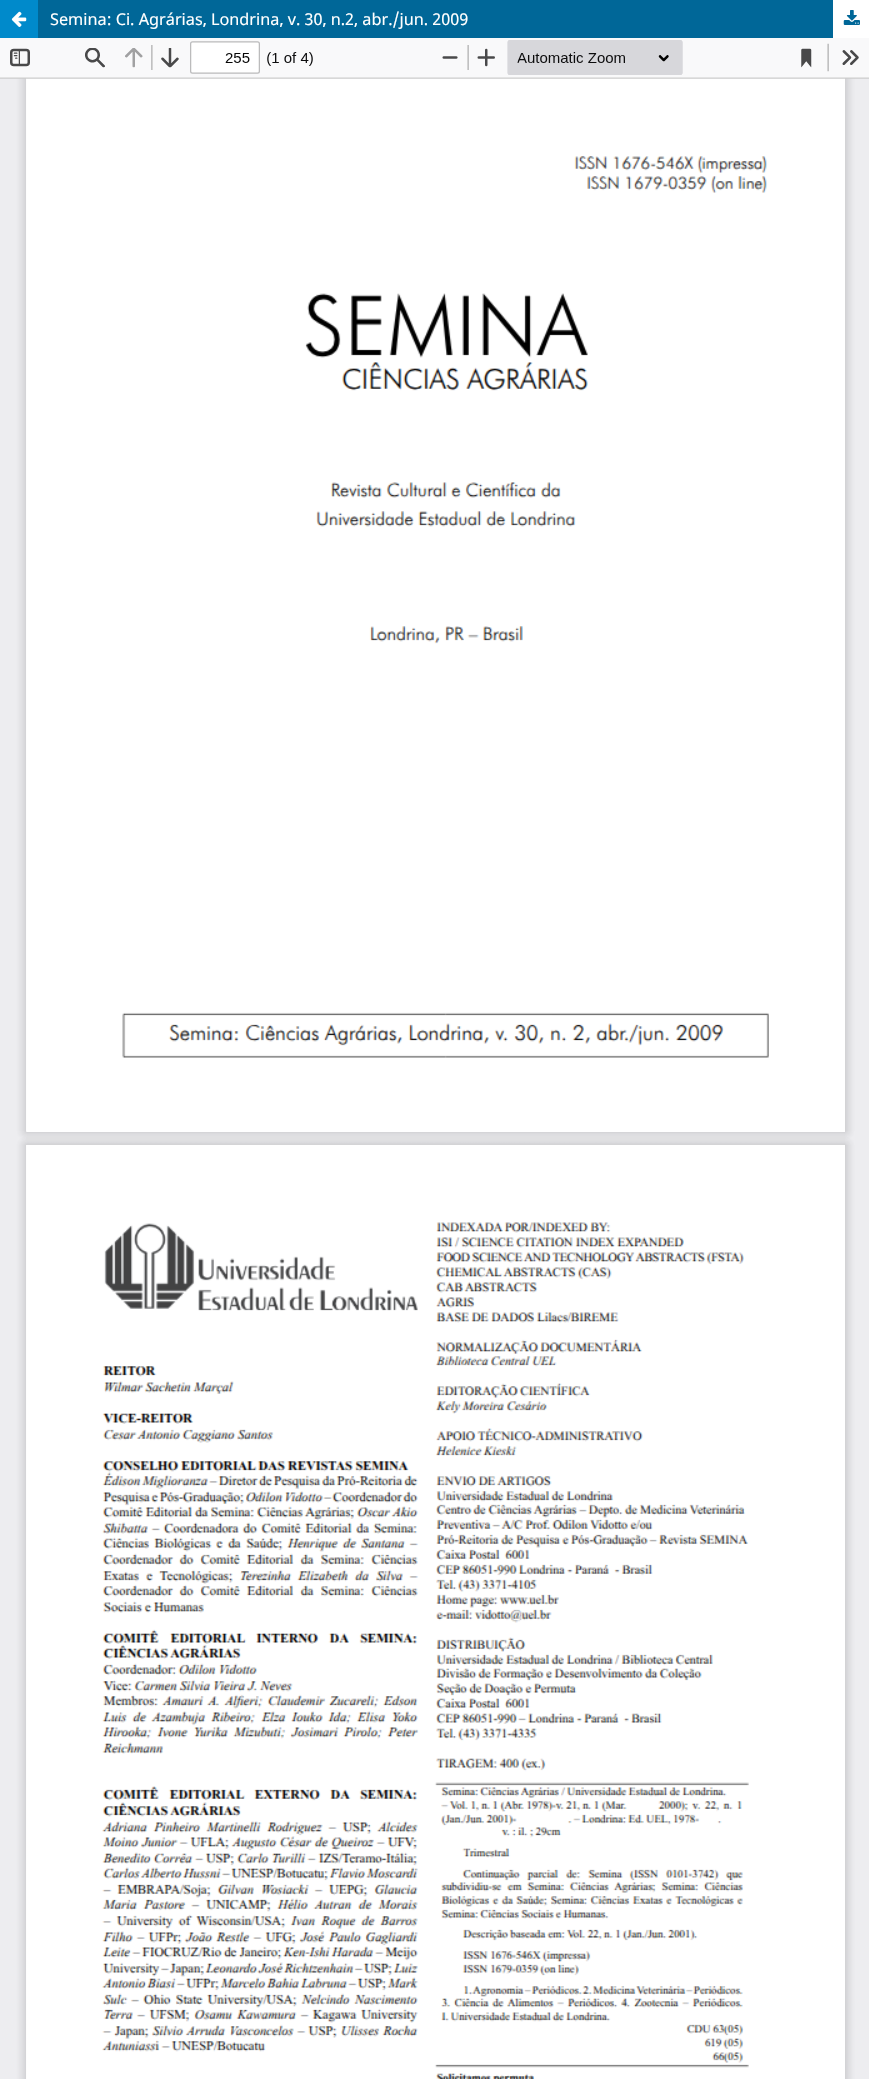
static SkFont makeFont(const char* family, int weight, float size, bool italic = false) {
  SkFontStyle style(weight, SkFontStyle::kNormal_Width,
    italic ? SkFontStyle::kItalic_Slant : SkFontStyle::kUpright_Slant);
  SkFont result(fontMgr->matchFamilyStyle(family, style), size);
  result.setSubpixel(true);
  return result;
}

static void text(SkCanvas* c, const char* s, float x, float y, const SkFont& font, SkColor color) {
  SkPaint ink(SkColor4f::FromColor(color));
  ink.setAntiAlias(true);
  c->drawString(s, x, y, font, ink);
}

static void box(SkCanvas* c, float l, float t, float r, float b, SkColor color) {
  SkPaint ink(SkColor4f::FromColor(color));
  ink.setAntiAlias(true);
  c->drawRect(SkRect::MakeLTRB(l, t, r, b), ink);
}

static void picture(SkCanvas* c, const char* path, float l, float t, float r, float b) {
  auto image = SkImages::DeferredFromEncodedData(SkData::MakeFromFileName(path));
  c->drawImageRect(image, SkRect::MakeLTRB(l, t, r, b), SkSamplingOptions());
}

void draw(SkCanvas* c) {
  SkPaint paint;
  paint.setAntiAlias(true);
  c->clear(0xffffffff);
  box(c, 38, 0, 833, 38, 0xff006798);
  box(c, 0, 0, 38, 38, 0xff008acb);
  picture(c, "img_01.png", 11, 11, 27, 27);
  SkFont face1 = makeFont("Noto Sans", 400, 16.25f);
  text(c, "Semina: Ci. Agrárias, Londrina, v. 30, n.2, abr./jun. 2009", 50, 25, face1, 0xffffffff);
  picture(c, "img_02.png", 843, 10, 860, 25);
  picture(c, "img_03.png", 0, 38, 869, 2079);
}
